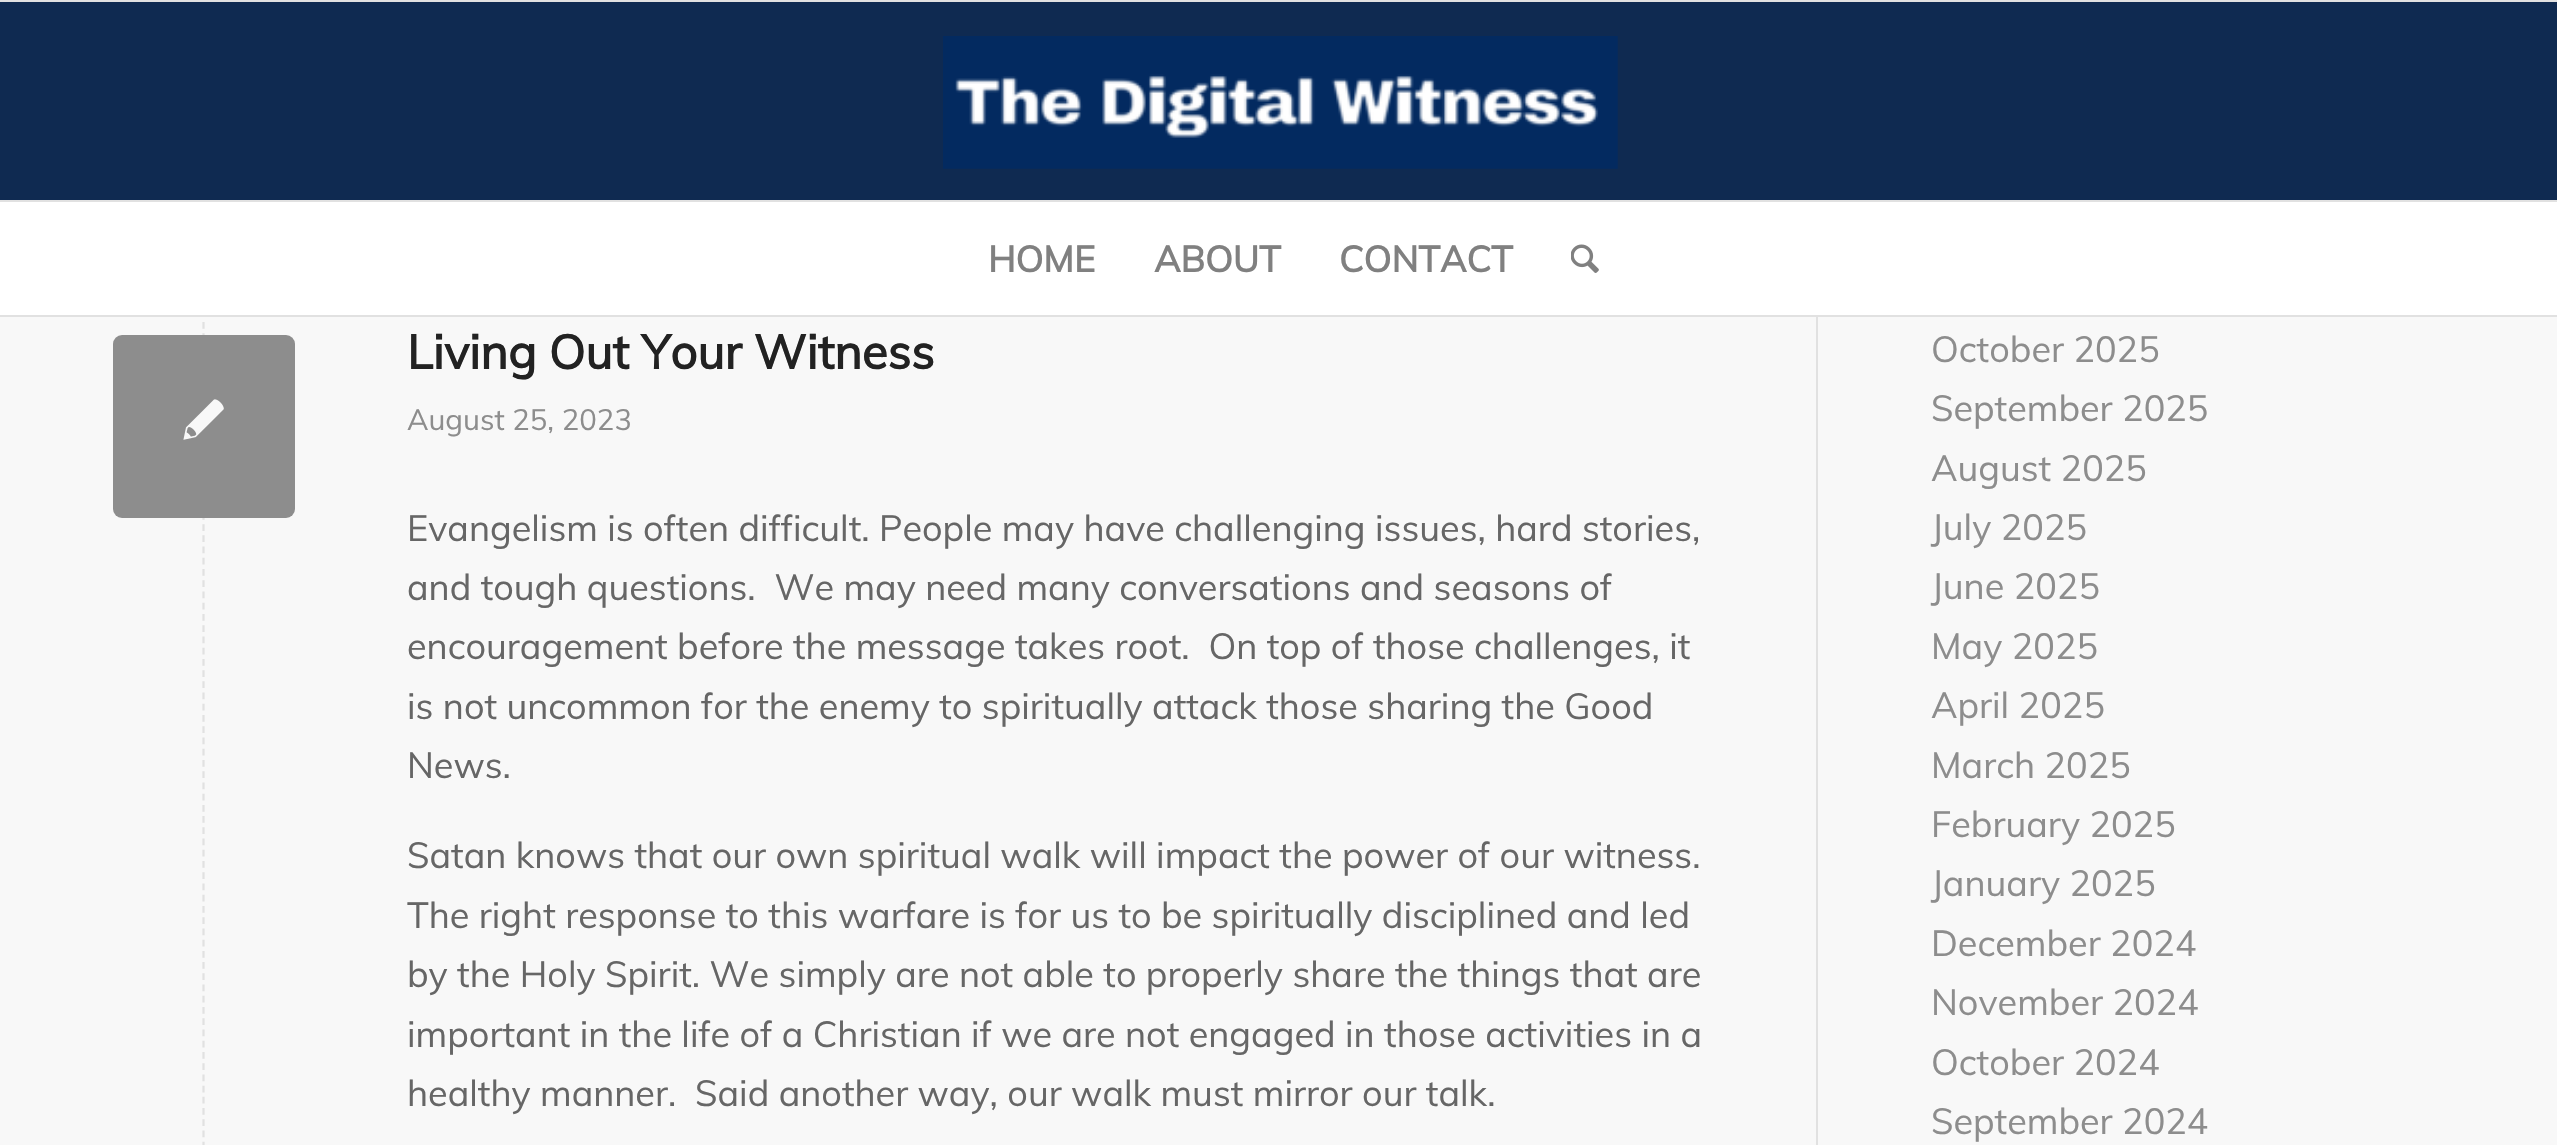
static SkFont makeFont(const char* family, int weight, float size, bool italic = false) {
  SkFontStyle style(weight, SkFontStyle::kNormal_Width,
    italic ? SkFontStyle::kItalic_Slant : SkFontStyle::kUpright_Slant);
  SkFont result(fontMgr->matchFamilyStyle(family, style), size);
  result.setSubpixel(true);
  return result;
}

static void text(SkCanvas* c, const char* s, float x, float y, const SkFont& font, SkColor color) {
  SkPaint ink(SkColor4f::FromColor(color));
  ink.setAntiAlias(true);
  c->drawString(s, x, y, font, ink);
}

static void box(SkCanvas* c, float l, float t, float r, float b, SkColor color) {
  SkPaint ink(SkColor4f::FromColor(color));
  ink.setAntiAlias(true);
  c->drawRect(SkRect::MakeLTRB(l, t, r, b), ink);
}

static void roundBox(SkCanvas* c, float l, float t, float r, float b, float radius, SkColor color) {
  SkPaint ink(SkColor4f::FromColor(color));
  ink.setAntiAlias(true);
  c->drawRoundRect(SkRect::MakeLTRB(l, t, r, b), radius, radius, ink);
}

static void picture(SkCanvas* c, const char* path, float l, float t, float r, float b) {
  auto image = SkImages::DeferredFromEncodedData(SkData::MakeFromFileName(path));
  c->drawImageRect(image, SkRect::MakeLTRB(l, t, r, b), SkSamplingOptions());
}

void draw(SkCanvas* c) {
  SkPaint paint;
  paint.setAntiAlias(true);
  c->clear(0xfff8f8f8);
  box(c, 0, 2, 2557, 200, 0xff0f2a51);
  box(c, 0, 0, 2557, 2, 0xffe1e1e1);
  box(c, 0, 315, 2557, 317, 0xffe1e1e1);
  picture(c, "img_01.png", 943, 36, 1618, 169);
  box(c, 0, 202, 2557, 315, 0xffffffff);
  box(c, 0, 200, 2557, 202, 0xffe1e1e1);
  SkFont face1 = makeFont("Muli", 700, 36);
  text(c, "HOME", 988, 272, face1, 0xff808080);
  text(c, "ABOUT", 1154, 272, face1, 0xff808080);
  text(c, "CONTACT", 1339, 272, face1, 0xff808080);
  picture(c, "img_02.png", 1571, 244, 1599, 273);
  box(c, 1816, 317, 1818, 1145, 0xffe1e1e1);
  paint.setStyle(SkPaint::kStroke_Style);
  paint.setStrokeWidth(2.2f);
  paint.setColor(0xffe1e1e1);
  paint.setPathEffect(SkDashPathEffect::Make({{6.75f, 4.48f}}, 0));
  c->drawPath(SkPathBuilder().moveTo(203.5f, 322).lineTo(203.5f, 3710).detach(), paint);
  paint.setPathEffect(nullptr);
  roundBox(c, 113, 335, 295, 518, 9, 0xff8d8d8d);
  picture(c, "img_03.png", 183, 399, 224, 440);
  SkFont face2 = makeFont("Muli", 700, 47.25f);
  text(c, "Living Out Your Witness", 407, 369, face2, 0xff222222);
  SkFont face3 = makeFont("Muli", 400, 29.25f);
  text(c, "August 25, 2023", 407, 430, face3, 0xff8d8d8d);
  SkFont face4 = makeFont("Muli", 400, 36);
  text(c, "Evangelism is often difficult. People may have challenging issues, hard stories,", 407, 541, face4, 0xff666666);
  text(c, "and tough questions.  We may need many conversations and seasons of", 407, 600, face4, 0xff666666);
  text(c, "encouragement before the message takes root.  On top of those challenges, it", 407, 659, face4, 0xff666666);
  text(c, "is not uncommon for the enemy to spiritually attack those sharing the Good", 407, 719, face4, 0xff666666);
  text(c, "News.", 407, 778, face4, 0xff666666);
  text(c, "Satan knows that our own spiritual walk will impact the power of our witness.", 407, 868, face4, 0xff666666);
  text(c, "The right response to this warfare is for us to be spiritually disciplined and led", 407, 928, face4, 0xff666666);
  text(c, "by the Holy Spirit. We simply are not able to properly share the things that are", 407, 987, face4, 0xff666666);
  text(c, "important in the life of a Christian if we are not engaged in those activities in a", 407, 1047, face4, 0xff666666);
  text(c, "healthy manner.  Said another way, our walk must mirror our talk.", 407, 1106, face4, 0xff666666);
  text(c, "October 2025", 1931, 362, face4, 0xff8d8d8d);
  text(c, "September 2025", 1931, 421, face4, 0xff8d8d8d);
  text(c, "August 2025", 1931, 481, face4, 0xff8d8d8d);
  text(c, "July 2025", 1931, 540, face4, 0xff8d8d8d);
  text(c, "June 2025", 1931, 599, face4, 0xff8d8d8d);
  text(c, "May 2025", 1931, 659, face4, 0xff8d8d8d);
  text(c, "April 2025", 1931, 718, face4, 0xff8d8d8d);
  text(c, "March 2025", 1931, 778, face4, 0xff8d8d8d);
  text(c, "February 2025", 1931, 837, face4, 0xff8d8d8d);
  text(c, "January 2025", 1931, 896, face4, 0xff8d8d8d);
  text(c, "December 2024", 1931, 956, face4, 0xff8d8d8d);
  text(c, "November 2024", 1931, 1015, face4, 0xff8d8d8d);
  text(c, "October 2024", 1931, 1075, face4, 0xff8d8d8d);
  text(c, "September 2024", 1931, 1134, face4, 0xff8d8d8d);
}
